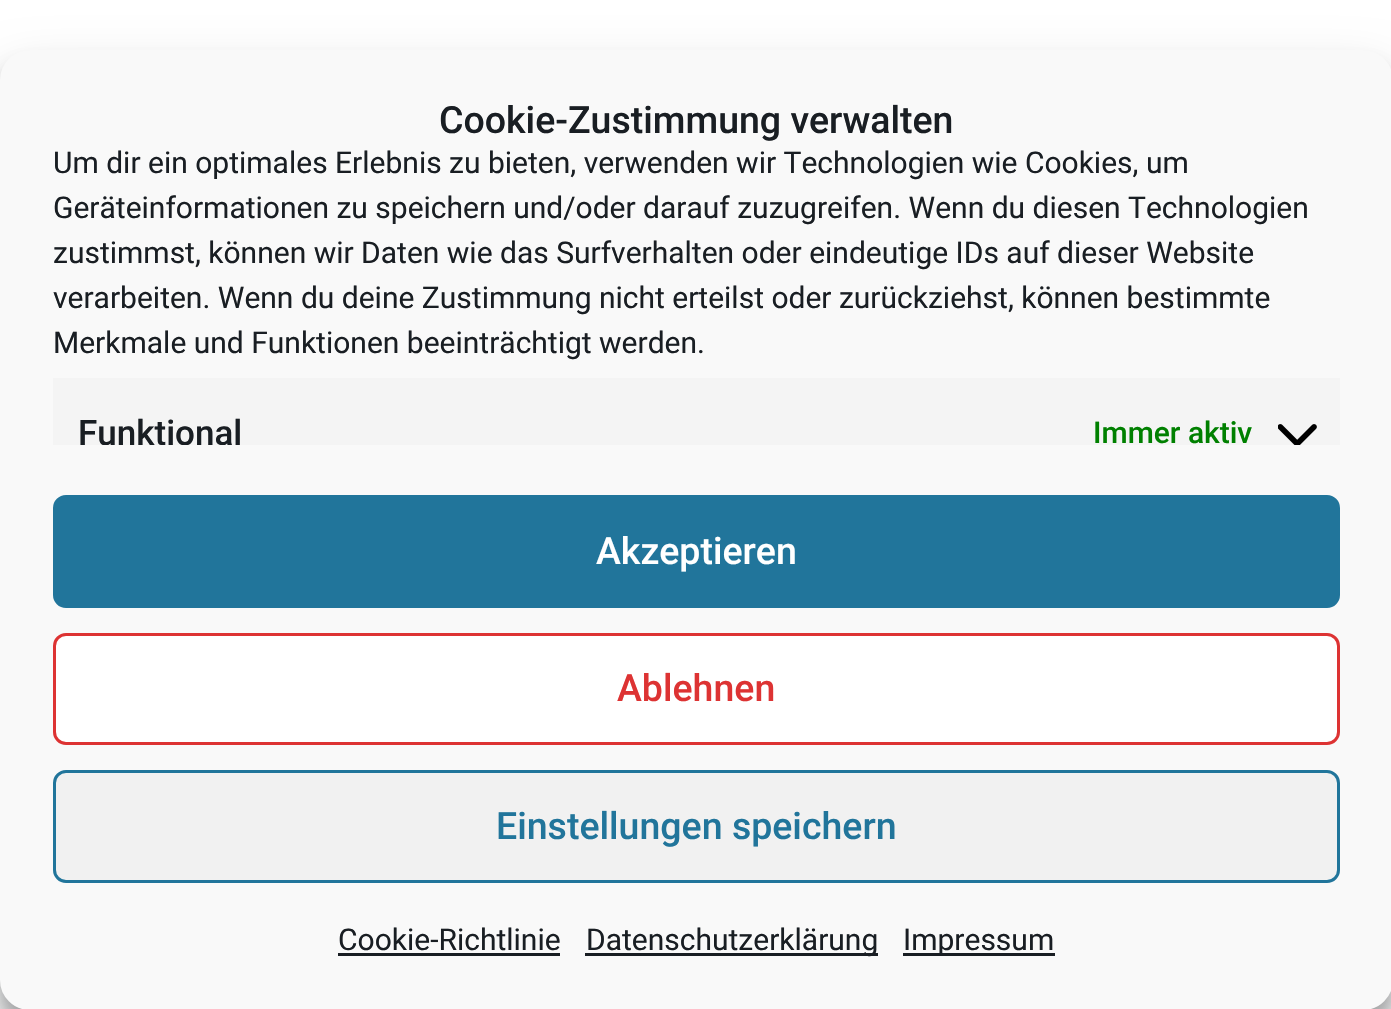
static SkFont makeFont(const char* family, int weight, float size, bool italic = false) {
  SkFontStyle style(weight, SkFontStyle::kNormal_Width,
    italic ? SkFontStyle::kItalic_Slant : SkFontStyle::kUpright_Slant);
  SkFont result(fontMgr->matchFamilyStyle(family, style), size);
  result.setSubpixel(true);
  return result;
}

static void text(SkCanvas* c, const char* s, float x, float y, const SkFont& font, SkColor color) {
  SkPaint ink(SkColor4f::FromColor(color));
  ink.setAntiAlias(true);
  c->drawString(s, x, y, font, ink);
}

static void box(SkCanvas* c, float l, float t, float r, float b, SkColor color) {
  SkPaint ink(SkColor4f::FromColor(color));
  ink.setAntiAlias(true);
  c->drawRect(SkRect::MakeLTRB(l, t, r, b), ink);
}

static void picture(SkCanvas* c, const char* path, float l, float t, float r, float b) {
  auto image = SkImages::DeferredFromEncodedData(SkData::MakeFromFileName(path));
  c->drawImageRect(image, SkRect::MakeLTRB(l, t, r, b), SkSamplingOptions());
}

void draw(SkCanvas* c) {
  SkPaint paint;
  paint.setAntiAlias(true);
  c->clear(0xfff9fafb);
  box(c, 0, 0, 1391, 80, 0xffffffff);
  paint.setColor(0x3b000000);
  paint.setMaskFilter(SkMaskFilter::MakeBlur(kNormal_SkBlurStyle, 7.5f));
  c->drawRoundRect(SkRect::MakeLTRB(0, 65, 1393, 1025), 30, 30, paint);
  paint.setMaskFilter(nullptr);
  paint.setColor(0x30000000);
  paint.setMaskFilter(SkMaskFilter::MakeBlur(kNormal_SkBlurStyle, 25));
  c->drawRoundRect(SkRect::MakeLTRB(0, 75, 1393, 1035), 30, 30, paint);
  paint.setMaskFilter(nullptr);
  paint.setColor(0xfff9f9f9);
  c->drawRoundRect(SkRect::MakeLTRB(1.5f, 51.5f, 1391.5f, 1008.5f), 28.5f, 28.5f, paint);
  paint.setStyle(SkPaint::kStroke_Style);
  paint.setStrokeWidth(3);
  c->drawRoundRect(SkRect::MakeLTRB(1.5f, 51.5f, 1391.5f, 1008.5f), 28.5f, 28.5f, paint);
  SkFont face1 = makeFont("Roboto", 500, 37.5f);
  text(c, "Cookie-Zustimmung verwalten", 439, 133, face1, 0xff191e23);
  SkFont face2 = makeFont("Roboto", 400, 30);
  text(c, "Um dir ein optimales Erlebnis zu bieten, verwenden wir Technologien wie Cookies, um", 53, 173, face2, 0xff191e23);
  text(c, "Geräteinformationen zu speichern und/oder darauf zuzugreifen. Wenn du diesen Technologien", 53, 218, face2, 0xff191e23);
  text(c, "zustimmst, können wir Daten wie das Surfverhalten oder eindeutige IDs auf dieser Website", 53, 263, face2, 0xff191e23);
  text(c, "verarbeiten. Wenn du deine Zustimmung nicht erteilst oder zurückziehst, können bestimmte", 53, 308, face2, 0xff191e23);
  text(c, "Merkmale und Funktionen beeinträchtigt werden.", 53, 353, face2, 0xff191e23);
  box(c, 53, 378, 1340, 445, 0xfff4f4f4);
  c->save();
  c->clipRect(SkRect::MakeLTRB(53, 140, 1340, 445));
  SkFont face3 = makeFont("Roboto", 500, 35);
  text(c, "Funktional", 78, 445, face3, 0xff191e23);
  c->restore();
  SkFont face4 = makeFont("Roboto", 500, 30);
  text(c, "Immer aktiv", 1093, 443, face4, 0xff008000);
  picture(c, "img_01.png", 1278, 424, 1317, 445);
  paint.setStyle(SkPaint::kFill_Style);
  paint.setColor(0xff21759b);
  c->drawRoundRect(SkRect::MakeLTRB(54.5f, 496.5f, 1338.5f, 606.5f), 11.5f, 11.5f, paint);
  paint.setStyle(SkPaint::kStroke_Style);
  c->drawRoundRect(SkRect::MakeLTRB(54.5f, 496.5f, 1338.5f, 606.5f), 11.5f, 11.5f, paint);
  text(c, "Akzeptieren", 596, 564, face1, 0xffffffff);
  paint.setStyle(SkPaint::kFill_Style);
  paint.setColor(0xffffffff);
  c->drawRoundRect(SkRect::MakeLTRB(54.5f, 634.5f, 1338.5f, 743.5f), 11.5f, 11.5f, paint);
  paint.setStyle(SkPaint::kStroke_Style);
  paint.setColor(0xffdd3333);
  c->drawRoundRect(SkRect::MakeLTRB(54.5f, 634.5f, 1338.5f, 743.5f), 11.5f, 11.5f, paint);
  text(c, "Ablehnen", 617, 701, face1, 0xffdd3333);
  paint.setStyle(SkPaint::kFill_Style);
  paint.setColor(0xfff1f1f1);
  c->drawRoundRect(SkRect::MakeLTRB(54.5f, 771.5f, 1338.5f, 881.5f), 11.5f, 11.5f, paint);
  paint.setStyle(SkPaint::kStroke_Style);
  paint.setColor(0xff21759b);
  c->drawRoundRect(SkRect::MakeLTRB(54.5f, 771.5f, 1338.5f, 881.5f), 11.5f, 11.5f, paint);
  text(c, "Einstellungen speichern", 496, 839, face1, 0xff21759b);
  text(c, "Cookie-Richtlinie", 338, 950, face2, 0xff191e23);
  box(c, 338, 953, 560, 956, 0xff191e23);
  box(c, 585, 953, 878, 956, 0xff191e23);
  text(c, "Datenschutzerklärung", 586, 950, face2, 0xff191e23);
  box(c, 903, 953, 1055, 956, 0xff191e23);
  text(c, "Impressum", 903, 950, face2, 0xff191e23);
}
